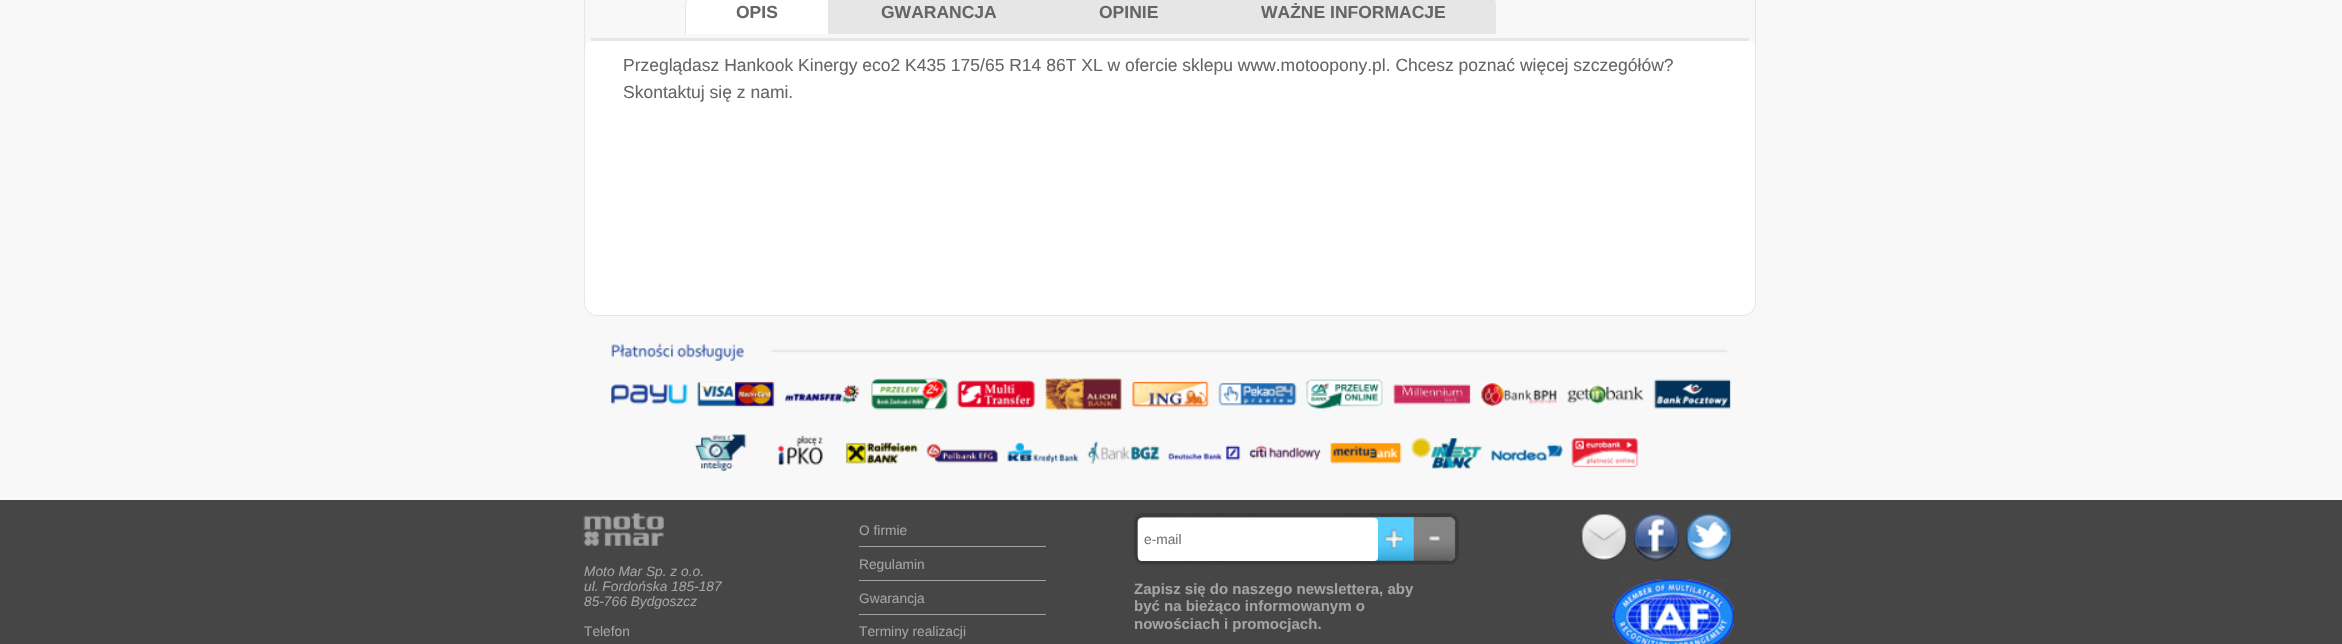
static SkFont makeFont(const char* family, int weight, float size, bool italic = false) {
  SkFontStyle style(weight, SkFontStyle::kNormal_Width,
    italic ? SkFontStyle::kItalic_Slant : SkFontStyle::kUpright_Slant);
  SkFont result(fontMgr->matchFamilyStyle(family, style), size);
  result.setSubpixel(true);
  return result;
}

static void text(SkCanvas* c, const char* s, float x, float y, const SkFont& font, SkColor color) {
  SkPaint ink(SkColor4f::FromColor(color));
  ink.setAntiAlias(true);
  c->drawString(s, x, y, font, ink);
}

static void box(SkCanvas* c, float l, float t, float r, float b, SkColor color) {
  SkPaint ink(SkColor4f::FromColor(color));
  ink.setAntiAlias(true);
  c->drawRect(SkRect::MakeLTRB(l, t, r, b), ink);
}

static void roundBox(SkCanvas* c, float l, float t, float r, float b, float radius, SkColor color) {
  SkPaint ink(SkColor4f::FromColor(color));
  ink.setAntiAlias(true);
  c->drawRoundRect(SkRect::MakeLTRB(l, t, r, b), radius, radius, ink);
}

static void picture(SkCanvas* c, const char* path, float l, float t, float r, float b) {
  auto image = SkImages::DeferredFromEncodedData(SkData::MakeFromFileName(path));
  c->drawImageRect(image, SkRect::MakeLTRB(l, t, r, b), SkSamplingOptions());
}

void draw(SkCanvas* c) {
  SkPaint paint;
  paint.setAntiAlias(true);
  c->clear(0xfff8f8f8);
  paint.setStyle(SkPaint::kStroke_Style);
  paint.setStrokeWidth(1);
  paint.setColor(0xffe6e6e6);
  c->drawRoundRect(SkRect::MakeLTRB(584.5f, -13.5f, 1755.5f, 315.5f), 12.5f, 12.5f, paint);
  paint.setStyle(SkPaint::kFill_Style);
  paint.setColor(0xffffffff);
  c->drawPath(SkPathBuilder().moveTo(704, -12).lineTo(829, -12).lineTo(829, 34).lineTo(685, 34).lineTo(685, 7).cubicTo(685, -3.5f, 693.5f, -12, 704, -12).close().detach(), paint);
  paint.setColor(0xffe6e6e6);
  c->drawPath(SkPathBuilder(SkPathFillType::kEvenOdd).moveTo(704, -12).lineTo(829, -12).lineTo(829, 34).lineTo(685, 34).lineTo(685, 6).cubicTo(685, -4, 693, -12, 704, -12).close().moveTo(704, -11).lineTo(828, -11).lineTo(828, 34).lineTo(686, 34).lineTo(686, 6).cubicTo(686, -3, 694, -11, 704, -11).close().detach(), paint);
  SkFont face1 = makeFont("Liberation Sans", 700, 17.5f);
  text(c, "OPIS", 736, 18, face1, 0xff666666);
  box(c, 829, 0, 1210, 34, 0xffe6e6e6);
  text(c, "GWARANCJA", 881, 18, face1, 0xff666666);
  text(c, "OPINIE", 1099, 18, face1, 0xff666666);
  c->drawPath(SkPathBuilder().moveTo(1210, -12).lineTo(1477, -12).cubicTo(1487.5f, -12, 1496, -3.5f, 1496, 7).lineTo(1496, 34).lineTo(1210, 34).close().detach(), paint);
  c->drawPath(SkPathBuilder(SkPathFillType::kEvenOdd).moveTo(1210, -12).lineTo(1478, -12).cubicTo(1488, -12, 1496, -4, 1496, 6).lineTo(1496, 34).lineTo(1210, 34).close().moveTo(1211, -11).lineTo(1478, -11).cubicTo(1487, -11, 1495, -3, 1495, 6).lineTo(1495, 34).lineTo(1211, 34).close().detach(), paint);
  text(c, "WAŻNE INFORMACJE", 1261, 18, face1, 0xff666666);
  roundBox(c, 585, 38, 1755, 315, 13, 0xffffffff);
  box(c, 591, 38, 1749, 41, 0xffe6e6e6);
  SkFont face2 = makeFont("Liberation Sans", 400, 17.5f);
  text(c, "Przeglądasz Hankook Kinergy eco2 K435 175/65 R14 86T XL w ofercie sklepu www.motoopony.pl. Chcesz poznać więcej szczegółów?", 623, 71, face2, 0xff666666);
  text(c, "Skontaktuj się z nami.", 623, 98, face2, 0xff666666);
  picture(c, "img_01.png", 611, 343, 1731, 471);
  box(c, 0, 500, 2342, 644, 0xff464646);
  picture(c, "img_02.png", 583, 513, 664, 546);
  SkFont face3 = makeFont("Liberation Sans", 400, 13.75f, true);
  text(c, "Moto Mar Sp. z o.o.", 584, 576, face3, 0xffa3a3a3);
  text(c, "ul. Fordońska 185-187", 584, 591, face3, 0xffa3a3a3);
  text(c, "85-766 Bydgoszcz", 584, 606, face3, 0xffa3a3a3);
  SkFont face4 = makeFont("Liberation Sans", 400, 13.75f);
  text(c, "Telefon", 584, 636, face4, 0xffa3a3a3);
  box(c, 859, 546, 1046, 547, 0xffa3a3a3);
  text(c, "O firmie", 859, 535, face4, 0xffa3a3a3);
  box(c, 859, 580, 1046, 581, 0xffa3a3a3);
  text(c, "Regulamin", 859, 569, face4, 0xffa3a3a3);
  box(c, 859, 614, 1046, 615, 0xffa3a3a3);
  text(c, "Gwarancja", 859, 603, face4, 0xffa3a3a3);
  text(c, "Terminy realizacji", 859, 636, face4, 0xffa3a3a3);
  picture(c, "img_03.png", 1133, 513, 1459, 565);
  roundBox(c, 1138, 518, 1378, 561, 4, 0xffffffff);
  text(c, "e-mail", 1144, 544, face4, 0xff757575);
  SkFont face5 = makeFont("Liberation Sans", 700, 15);
  text(c, "Zapisz się do naszego newslettera, aby", 1134, 594, face5, 0xffa3a3a3);
  text(c, "być na bieżąco informowanym o", 1134, 611, face5, 0xffa3a3a3);
  text(c, "nowościach i promocjach.", 1134, 629, face5, 0xffa3a3a3);
  picture(c, "img_04.png", 1580, 514, 1628, 561);
  picture(c, "img_05.png", 1633, 514, 1679, 561);
  picture(c, "img_06.png", 1686, 514, 1733, 561);
  picture(c, "img_07.png", 1612, 579, 1734, 644);
}
